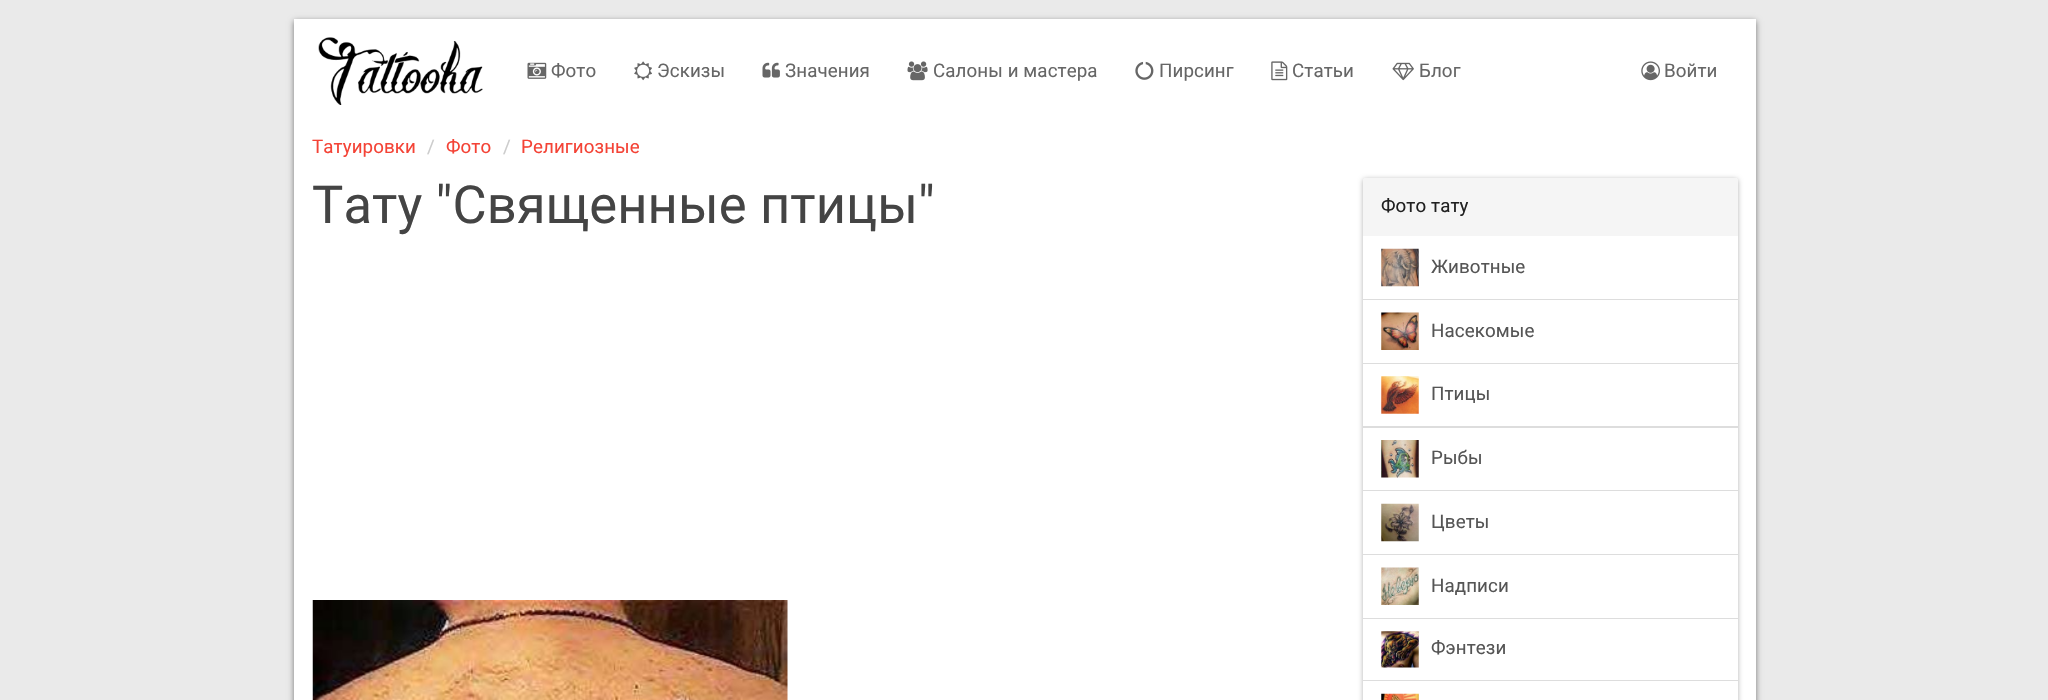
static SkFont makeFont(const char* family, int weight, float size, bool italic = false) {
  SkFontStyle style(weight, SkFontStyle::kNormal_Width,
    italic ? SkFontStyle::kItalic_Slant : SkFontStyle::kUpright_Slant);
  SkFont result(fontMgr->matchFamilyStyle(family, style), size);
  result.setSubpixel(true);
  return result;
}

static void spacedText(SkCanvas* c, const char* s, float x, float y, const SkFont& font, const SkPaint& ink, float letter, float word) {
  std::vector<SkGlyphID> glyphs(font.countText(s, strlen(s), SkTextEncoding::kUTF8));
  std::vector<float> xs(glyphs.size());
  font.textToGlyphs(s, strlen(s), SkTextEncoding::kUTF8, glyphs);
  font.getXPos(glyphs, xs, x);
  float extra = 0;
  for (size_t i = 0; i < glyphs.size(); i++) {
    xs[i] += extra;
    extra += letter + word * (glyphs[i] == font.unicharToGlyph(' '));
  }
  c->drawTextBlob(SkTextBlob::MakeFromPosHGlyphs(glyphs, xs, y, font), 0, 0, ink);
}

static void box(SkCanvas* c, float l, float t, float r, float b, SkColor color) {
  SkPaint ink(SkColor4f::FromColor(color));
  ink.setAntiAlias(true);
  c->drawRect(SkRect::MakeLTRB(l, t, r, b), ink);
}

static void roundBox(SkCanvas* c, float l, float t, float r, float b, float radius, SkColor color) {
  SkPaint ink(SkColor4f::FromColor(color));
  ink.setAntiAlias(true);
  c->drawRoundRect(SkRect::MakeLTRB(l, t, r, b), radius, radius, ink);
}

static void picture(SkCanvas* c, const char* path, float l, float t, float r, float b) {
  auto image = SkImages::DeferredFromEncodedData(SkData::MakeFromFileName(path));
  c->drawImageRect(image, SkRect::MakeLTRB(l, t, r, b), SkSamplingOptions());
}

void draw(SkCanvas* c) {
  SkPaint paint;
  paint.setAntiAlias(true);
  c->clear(0xffeaeaea);
  paint.setColor(0x80000000);
  paint.setMaskFilter(SkMaskFilter::MakeBlur(kNormal_SkBlurStyle, 3));
  c->drawRect(SkRect::MakeLTRB(294, 21, 1756, 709), paint);
  paint.setMaskFilter(nullptr);
  box(c, 294, 19, 1756, 700, 0xffffffff);
  picture(c, "img_01.png", 318, 37, 483, 105);
  picture(c, "img_02.png", 527, 62, 547, 79);
  SkFont face1 = makeFont("Roboto", 400, 18.75f);
  paint.setColor(0xff666666);
  spacedText(c, "Фото", 551, 77, face1, paint, 0.1f, 0);
  picture(c, "img_03.png", 634, 61, 652, 81);
  spacedText(c, "Эскизы", 657, 77, face1, paint, 0.1f, 0);
  picture(c, "img_04.png", 762, 62, 780, 78);
  spacedText(c, "Значения", 785, 77, face1, paint, 0.1f, 0);
  picture(c, "img_05.png", 907, 61, 928, 81);
  spacedText(c, "Салоны и мастера", 933, 77, face1, paint, 0.1f, 0);
  picture(c, "img_06.png", 1135, 61, 1154, 80);
  spacedText(c, "Пирсинг", 1159, 77, face1, paint, 0.1f, 0);
  picture(c, "img_07.png", 1271, 61, 1288, 81);
  spacedText(c, "Статьи", 1292, 77, face1, paint, 0.1f, 0);
  picture(c, "img_08.png", 1392, 62, 1414, 81);
  spacedText(c, "Блог", 1419, 77, face1, paint, 0.1f, 0);
  picture(c, "img_09.png", 1641, 61, 1660, 81);
  spacedText(c, "Войти", 1664, 77, face1, paint, 0.1f, 0);
  paint.setColor(0xfff44336);
  spacedText(c, "Татуировки", 312, 153, face1, paint, 0.1f, 0);
  paint.setColor(0xffcccccc);
  spacedText(c, "/", 427, 153, face1, paint, 0.1f, 0);
  paint.setColor(0xfff44336);
  spacedText(c, "Фото", 446, 153, face1, paint, 0.1f, 0);
  paint.setColor(0xffcccccc);
  spacedText(c, "/", 503, 153, face1, paint, 0.1f, 0);
  paint.setColor(0xfff44336);
  spacedText(c, "Религиозные", 521, 153, face1, paint, 0.1f, 0);
  SkFont face2 = makeFont("Roboto", 400, 52.5f);
  paint.setColor(0xff444444);
  spacedText(c, "Тату \"Священные птицы\"", 312, 223, face2, paint, 0.1f, 0);
  picture(c, "img_10.png", 312, 600, 788, 700);
  paint.setColor(0x4d000000);
  paint.setMaskFilter(SkMaskFilter::MakeBlur(kNormal_SkBlurStyle, 2.5f));
  c->drawRoundRect(SkRect::MakeLTRB(1363, 179, 1738, 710), 2.5f, 2.5f, paint);
  paint.setMaskFilter(nullptr);
  roundBox(c, 1363, 178, 1738, 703, 2.5f, 0xffffffff);
  paint.setColor(0xfff5f5f5);
  c->drawPath(SkPathBuilder().moveTo(1365.5f, 178).lineTo(1735.5f, 178).cubicTo(1737, 178, 1738, 179, 1738, 180.5f).lineTo(1738, 236).lineTo(1363, 236).lineTo(1363, 180.5f).cubicTo(1363, 179, 1364, 178, 1365.5f, 178).close().detach(), paint);
  paint.setColor(0xff212121);
  spacedText(c, "Фото тату", 1381, 212, face1, paint, 0.1f, 0);
  box(c, 1363, 299, 1738, 300, 0xffdddddd);
  picture(c, "img_11.png", 1381, 248, 1419, 287);
  paint.setColor(0xff555555);
  spacedText(c, "Животные", 1431, 273, face1, paint, 0.1f, 0);
  box(c, 1363, 363, 1738, 364, 0xffdddddd);
  picture(c, "img_12.png", 1381, 312, 1419, 350);
  spacedText(c, "Насекомые", 1431, 337, face1, paint, 0.1f, 0);
  box(c, 1363, 426, 1738, 428, 0xffdddddd);
  picture(c, "img_13.png", 1381, 376, 1419, 414);
  spacedText(c, "Птицы", 1431, 400, face1, paint, 0.1f, 0);
  box(c, 1363, 490, 1738, 491, 0xffdddddd);
  picture(c, "img_14.png", 1381, 440, 1419, 478);
  spacedText(c, "Рыбы", 1431, 464, face1, paint, 0.1f, 0);
  box(c, 1363, 554, 1738, 555, 0xffdddddd);
  picture(c, "img_15.png", 1381, 503, 1419, 542);
  spacedText(c, "Цветы", 1431, 528, face1, paint, 0.1f, 0);
  box(c, 1363, 618, 1738, 619, 0xffdddddd);
  picture(c, "img_16.png", 1381, 567, 1419, 605);
  spacedText(c, "Надписи", 1431, 592, face1, paint, 0.1f, 0);
  box(c, 1363, 680, 1738, 681, 0xffdddddd);
  picture(c, "img_17.png", 1381, 631, 1419, 668);
  spacedText(c, "Фэнтези", 1431, 654, face1, paint, 0.1f, 0);
  picture(c, "img_18.png", 1381, 693, 1419, 700);
}
